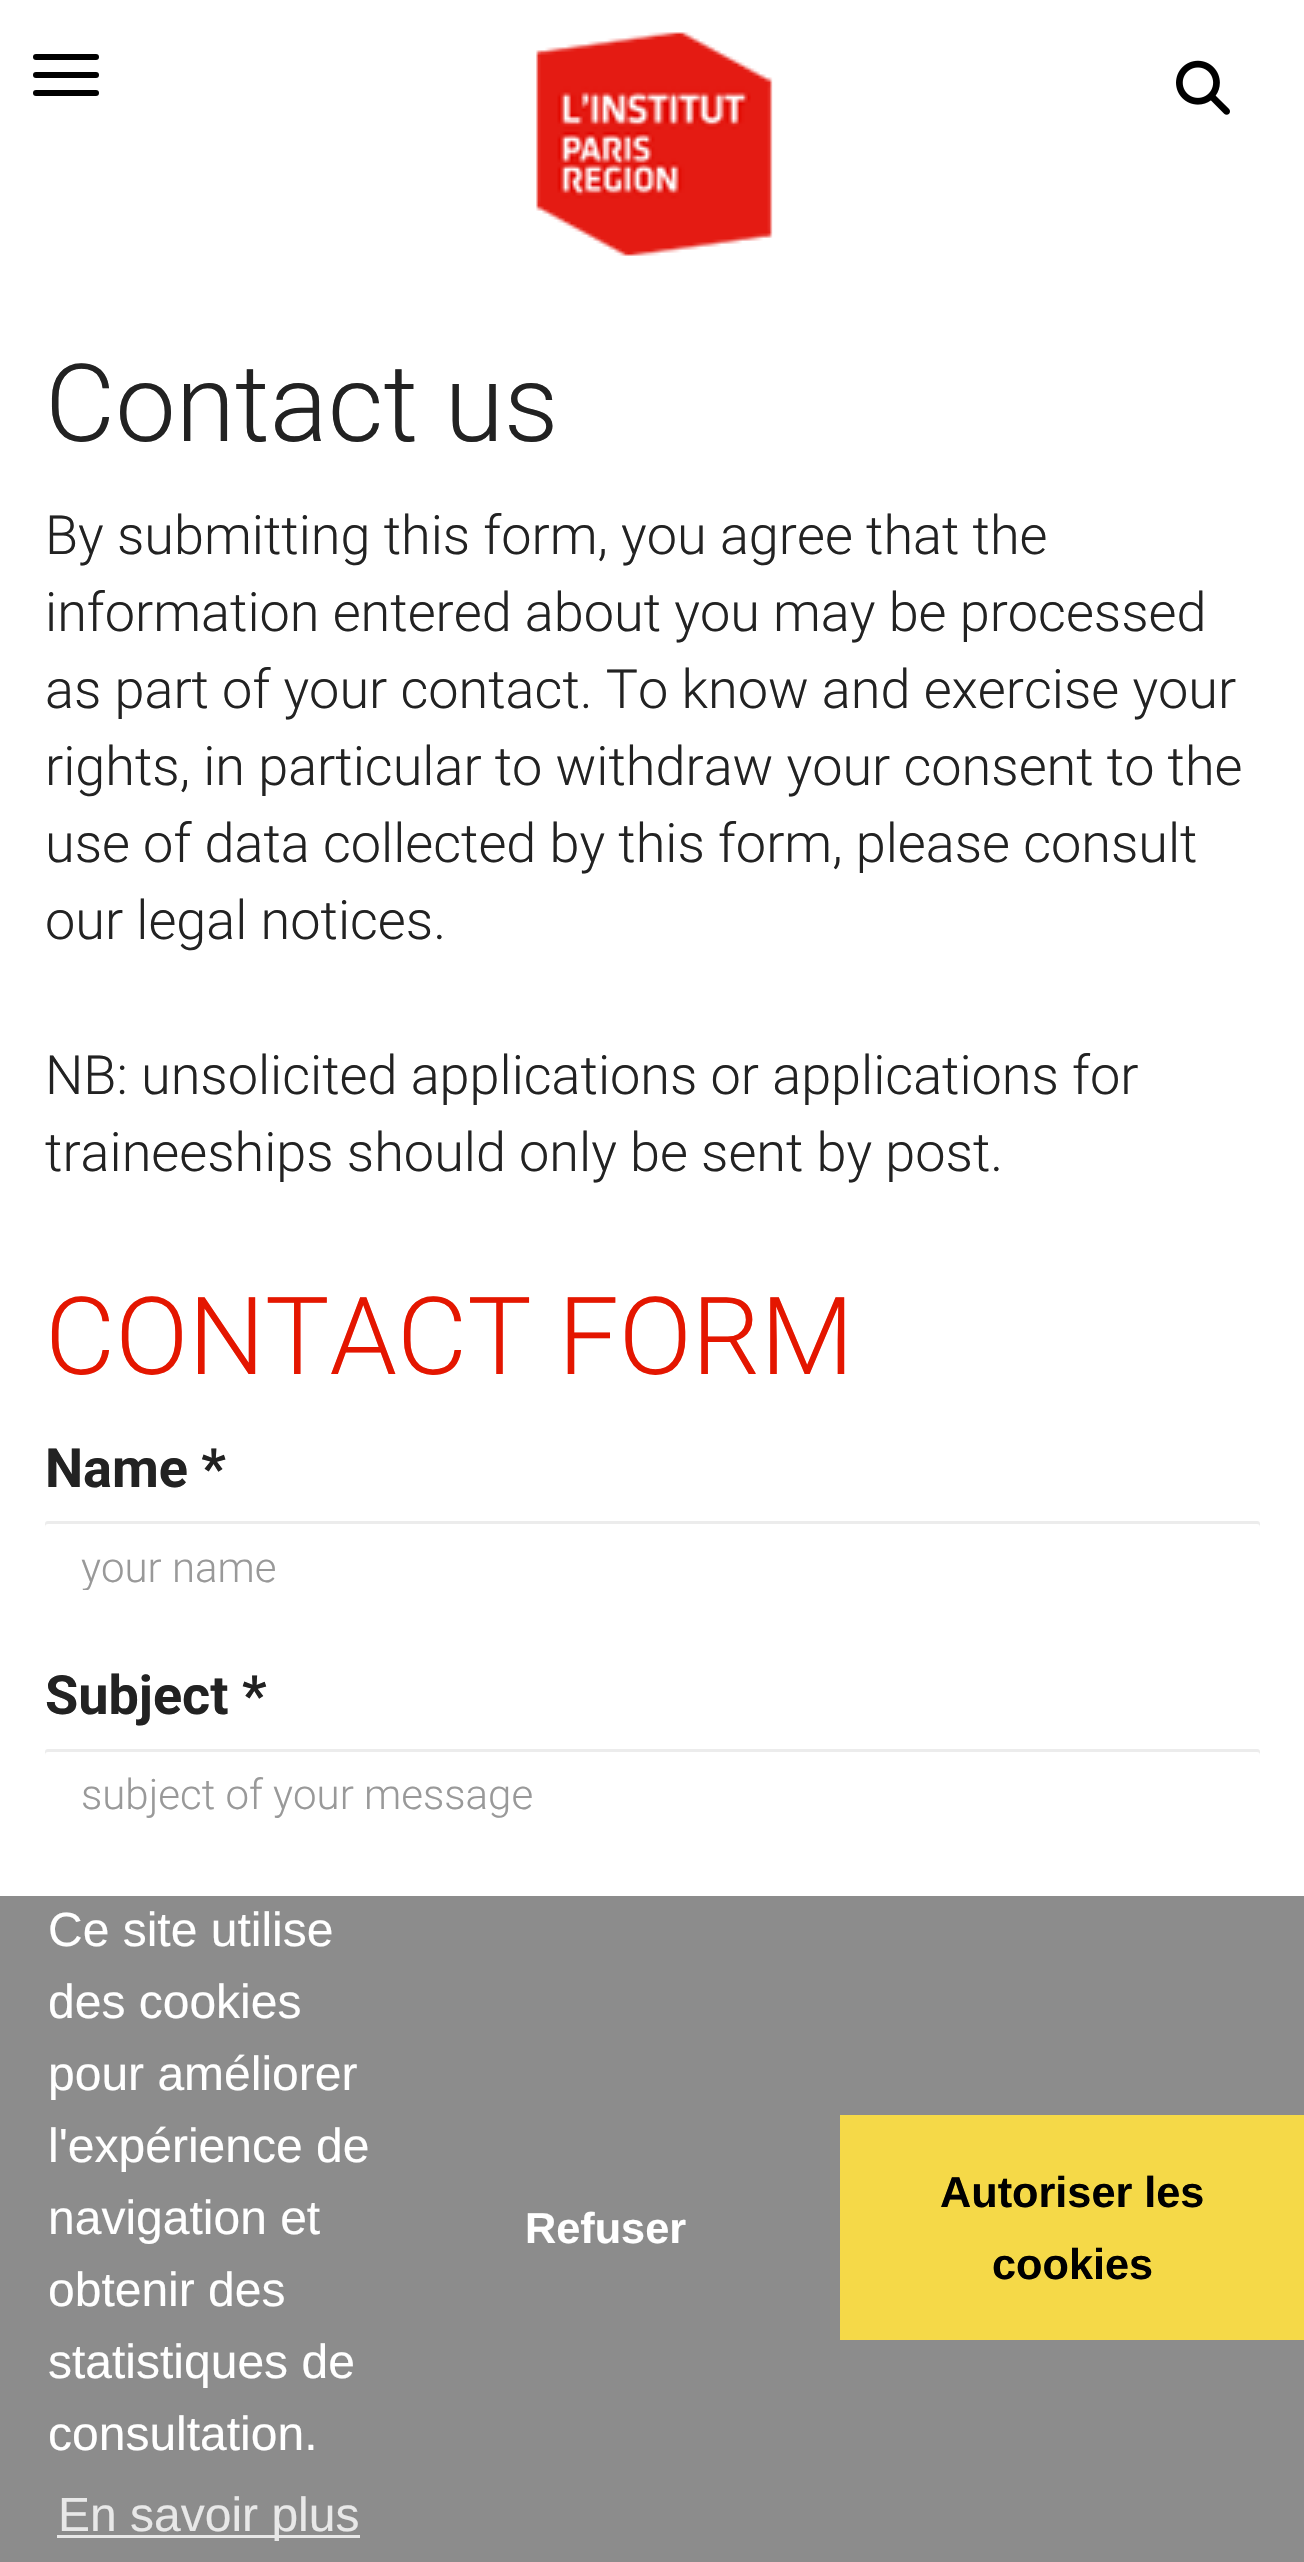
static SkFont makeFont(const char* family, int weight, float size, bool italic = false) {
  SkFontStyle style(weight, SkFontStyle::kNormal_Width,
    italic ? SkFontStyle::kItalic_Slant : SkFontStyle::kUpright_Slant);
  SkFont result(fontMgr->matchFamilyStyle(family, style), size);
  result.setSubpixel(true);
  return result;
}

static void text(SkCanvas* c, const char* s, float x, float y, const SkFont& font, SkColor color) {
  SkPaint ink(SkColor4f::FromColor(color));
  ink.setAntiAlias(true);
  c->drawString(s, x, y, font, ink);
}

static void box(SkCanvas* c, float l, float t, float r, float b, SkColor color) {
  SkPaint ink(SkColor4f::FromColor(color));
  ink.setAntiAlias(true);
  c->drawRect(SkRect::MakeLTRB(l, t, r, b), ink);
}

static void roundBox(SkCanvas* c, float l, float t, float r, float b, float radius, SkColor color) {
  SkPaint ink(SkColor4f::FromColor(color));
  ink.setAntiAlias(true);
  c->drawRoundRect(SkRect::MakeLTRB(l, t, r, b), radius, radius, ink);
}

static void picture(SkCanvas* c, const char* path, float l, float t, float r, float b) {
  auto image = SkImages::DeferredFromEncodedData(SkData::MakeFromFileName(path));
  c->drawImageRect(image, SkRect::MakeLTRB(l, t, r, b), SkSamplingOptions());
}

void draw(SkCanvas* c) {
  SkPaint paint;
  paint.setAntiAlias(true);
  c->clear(0xffffffff);
  roundBox(c, 33, 54, 99, 60, 3, 0xff000000);
  roundBox(c, 33, 72, 99, 78, 3, 0xff000000);
  roundBox(c, 33, 90, 99, 96, 3, 0xff000000);
  picture(c, "img_01.png", 536, 32, 773, 256);
  picture(c, "img_02.png", 1176, 60, 1230, 115);
  SkFont face1 = makeFont("Roboto", 300, 108);
  text(c, "Contact us", 45, 441, face1, 0xff222222);
  SkFont face2 = makeFont("Roboto", 300, 54);
  text(c, "By submitting this form, you agree that the", 45, 554, face2, 0xff222222);
  text(c, "information entered about you may be processed", 45, 631, face2, 0xff222222);
  text(c, "as part of your contact. To know and exercise your", 45, 708, face2, 0xff222222);
  text(c, "rights, in particular to withdraw your consent to the", 45, 785, face2, 0xff222222);
  text(c, "use of data collected by this form, please consult", 45, 862, face2, 0xff222222);
  text(c, "our legal notices.", 45, 939, face2, 0xff222222);
  text(c, "NB: unsolicited applications or applications for", 45, 1094, face2, 0xff222222);
  text(c, "traineeships should only be sent by post.", 45, 1171, face2, 0xff222222);
  text(c, "CONTACT FORM", 45, 1374, face1, 0xffe41600);
  SkFont face3 = makeFont("Roboto", 700, 54);
  text(c, "Name *", 45, 1487, face3, 0xff222222);
  paint.setColor(0xffececec);
  c->drawPath(SkPathBuilder().moveTo(48, 1524).lineTo(1257, 1524).cubicTo(1259, 1524, 1260, 1525, 1260, 1527).lineTo(1260, 1524).cubicTo(1260, 1522, 1259, 1521, 1257, 1521).lineTo(48, 1521).cubicTo(46, 1521, 45, 1522, 45, 1524).lineTo(45, 1527).cubicTo(45, 1525, 46, 1524, 48, 1524).close().detach(), paint);
  c->save();
  c->clipRect(SkRect::MakeLTRB(81, 1542, 1224, 1590));
  SkFont face4 = makeFont("Roboto", 300, 42);
  text(c, "your name", 81, 1582, face4, 0xff999999);
  c->restore();
  text(c, "Subject *", 45, 1714, face3, 0xff222222);
  c->drawPath(SkPathBuilder().moveTo(48, 1752).lineTo(1257, 1752).cubicTo(1259, 1752, 1260, 1753, 1260, 1755).lineTo(1260, 1752).cubicTo(1260, 1750, 1259, 1749, 1257, 1749).lineTo(48, 1749).cubicTo(46, 1749, 45, 1750, 45, 1752).lineTo(45, 1755).cubicTo(45, 1753, 46, 1752, 48, 1752).close().detach(), paint);
  text(c, "subject of your message", 81, 1809, face4, 0xff999999);
  box(c, 0, 1896, 1304, 2562, 0xff8c8c8c);
  SkFont face5 = makeFont("Liberation Sans", 400, 48);
  text(c, "Ce site utilise", 48, 1946, face5, 0xffffffff);
  text(c, "des cookies", 48, 2018, face5, 0xffffffff);
  text(c, "pour améliorer", 48, 2090, face5, 0xffffffff);
  text(c, "l'expérience de", 48, 2162, face5, 0xffffffff);
  text(c, "navigation et", 48, 2234, face5, 0xffffffff);
  text(c, "obtenir des", 48, 2306, face5, 0xffffffff);
  text(c, "statistiques de", 48, 2378, face5, 0xffffffff);
  text(c, "consultation.", 48, 2450, face5, 0xffffffff);
  box(c, 57, 2535, 360, 2538, 0xffe8e8e8);
  text(c, "En savoir plus", 58, 2531, face5, 0xffe8e8e8);
  SkFont face6 = makeFont("Liberation Sans", 700, 43.25f);
  text(c, "Refuser", 525, 2243, face6, 0xffffffff);
  box(c, 840, 2115, 1304, 2340, 0xfff5d948);
  text(c, "Autoriser les", 940, 2207, face6, 0xff000000);
  text(c, "cookies", 992, 2279, face6, 0xff000000);
}
